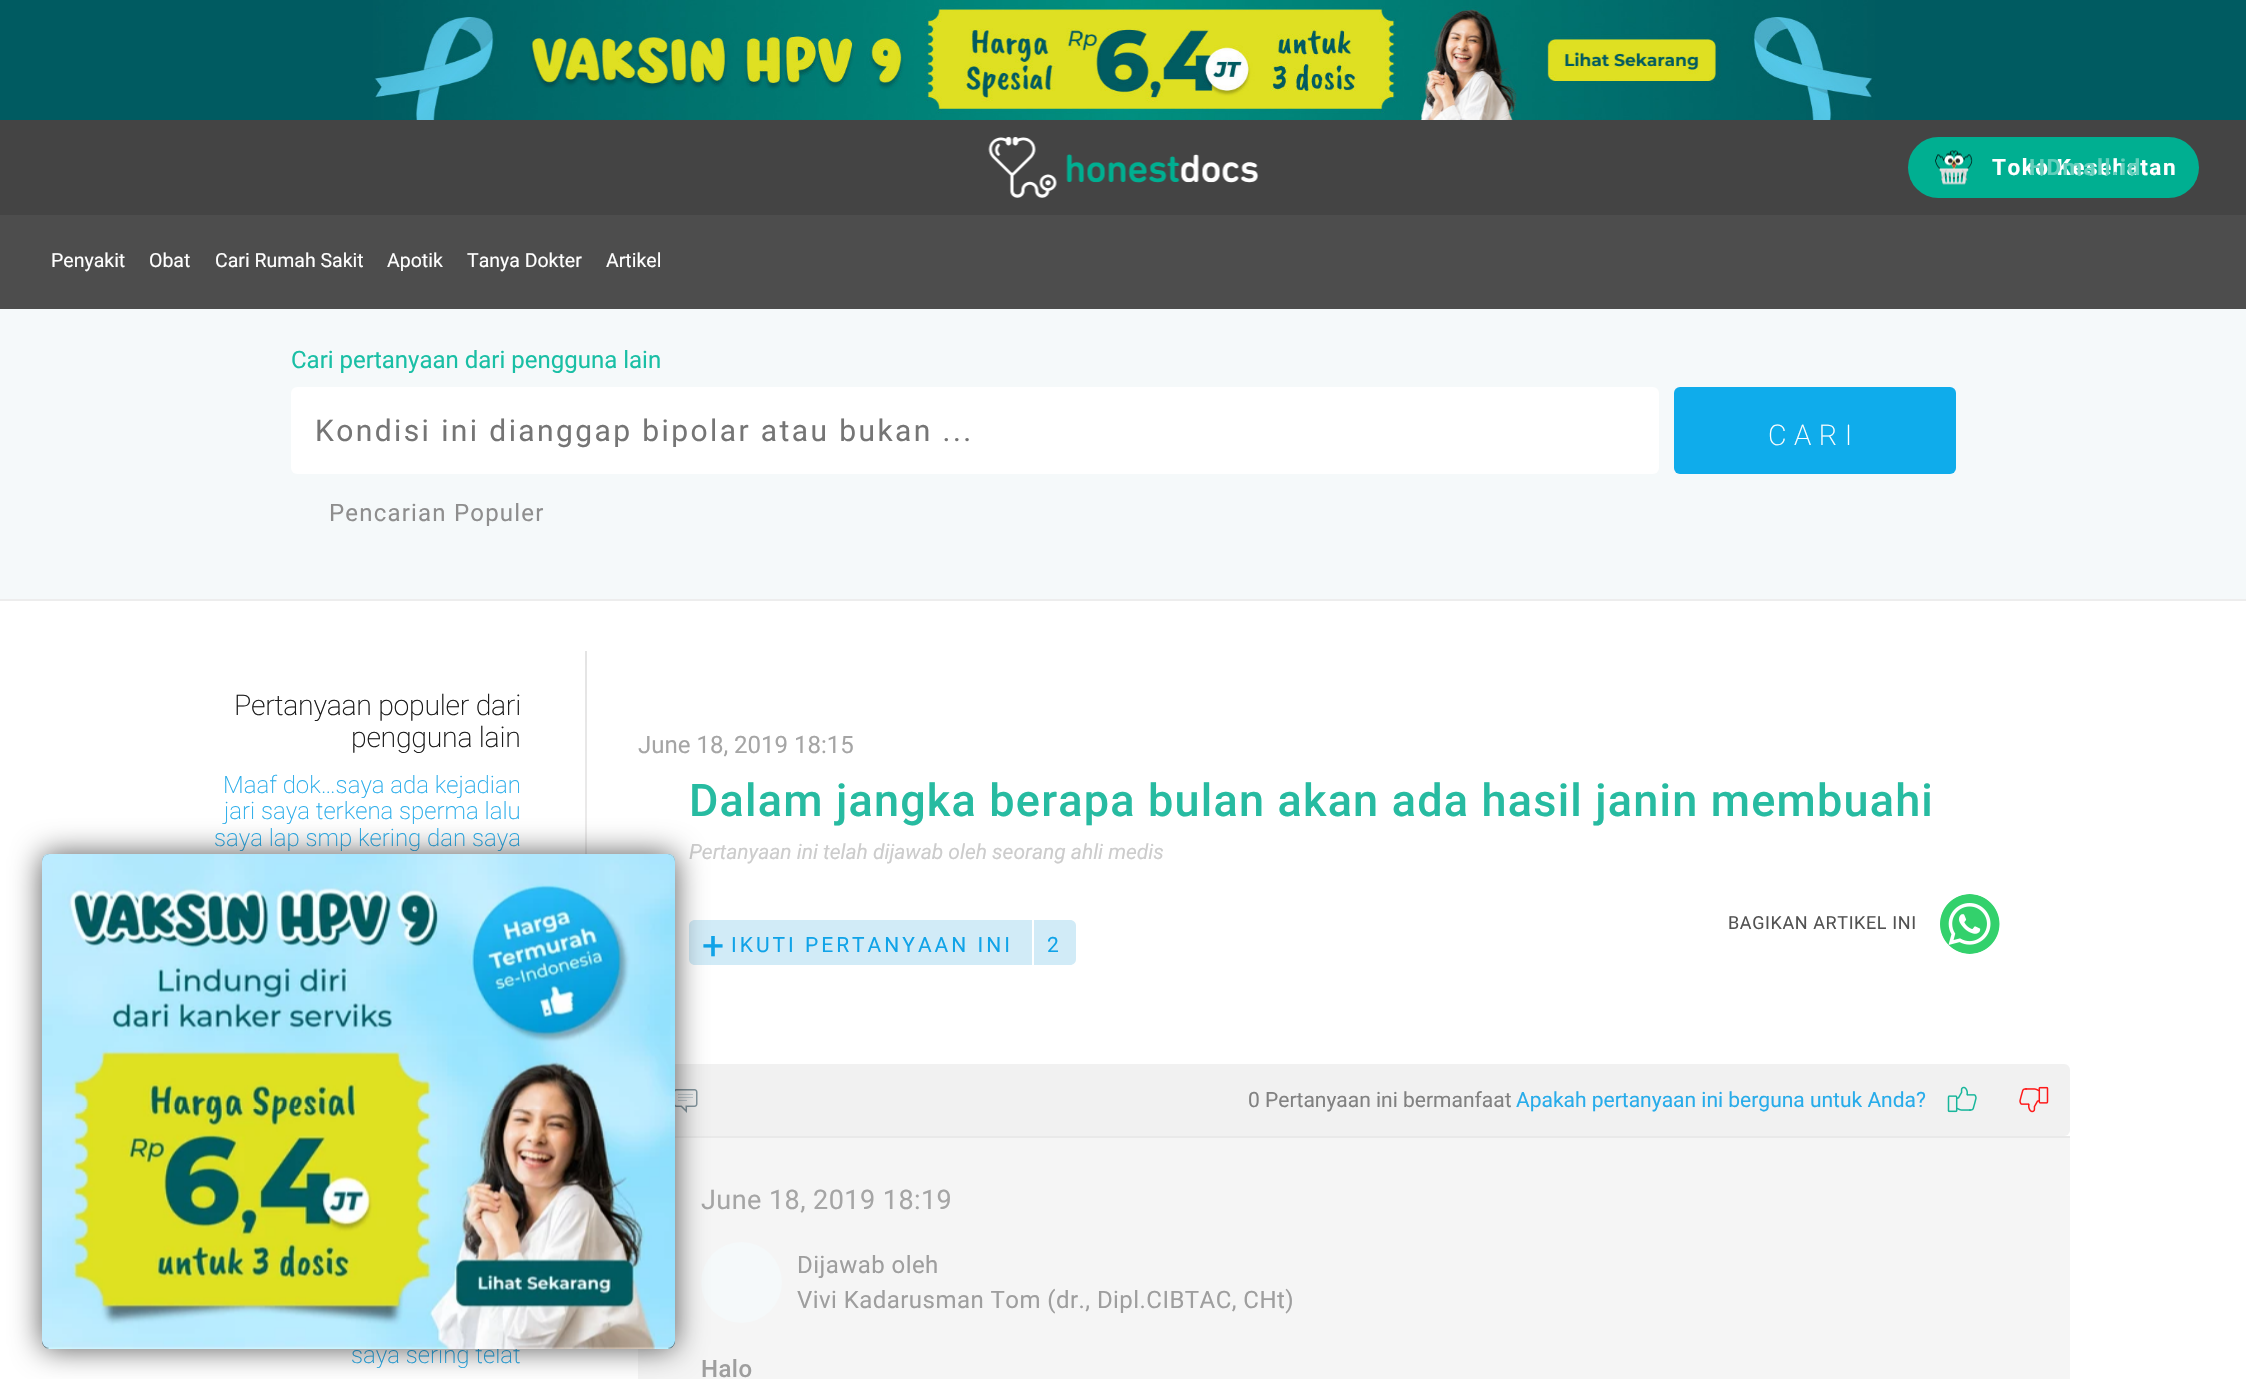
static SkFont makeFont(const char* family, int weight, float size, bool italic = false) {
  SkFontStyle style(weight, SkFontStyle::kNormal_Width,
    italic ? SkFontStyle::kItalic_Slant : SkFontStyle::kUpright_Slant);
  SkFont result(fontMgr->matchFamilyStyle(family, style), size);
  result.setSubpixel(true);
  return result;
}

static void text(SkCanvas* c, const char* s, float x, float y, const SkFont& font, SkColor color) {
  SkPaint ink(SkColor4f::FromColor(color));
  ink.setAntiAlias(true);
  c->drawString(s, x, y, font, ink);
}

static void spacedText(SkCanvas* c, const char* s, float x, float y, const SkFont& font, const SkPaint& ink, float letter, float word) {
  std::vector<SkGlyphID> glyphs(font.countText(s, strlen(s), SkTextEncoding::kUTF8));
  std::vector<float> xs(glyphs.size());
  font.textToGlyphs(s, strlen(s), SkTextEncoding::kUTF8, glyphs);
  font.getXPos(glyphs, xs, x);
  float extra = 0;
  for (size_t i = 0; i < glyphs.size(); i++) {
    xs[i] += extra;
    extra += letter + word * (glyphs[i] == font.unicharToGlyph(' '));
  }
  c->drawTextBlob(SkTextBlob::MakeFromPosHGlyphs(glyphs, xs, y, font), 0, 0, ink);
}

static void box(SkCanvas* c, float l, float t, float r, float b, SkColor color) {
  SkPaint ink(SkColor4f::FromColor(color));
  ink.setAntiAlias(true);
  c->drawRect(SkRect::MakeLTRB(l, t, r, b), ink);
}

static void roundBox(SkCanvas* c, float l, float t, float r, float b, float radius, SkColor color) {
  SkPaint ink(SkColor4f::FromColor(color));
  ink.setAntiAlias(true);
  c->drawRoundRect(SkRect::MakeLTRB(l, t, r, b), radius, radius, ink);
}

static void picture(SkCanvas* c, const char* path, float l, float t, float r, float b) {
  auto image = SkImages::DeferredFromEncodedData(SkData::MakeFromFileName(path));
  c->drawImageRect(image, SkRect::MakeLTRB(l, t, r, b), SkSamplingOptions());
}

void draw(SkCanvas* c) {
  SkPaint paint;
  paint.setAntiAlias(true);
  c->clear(0xffffffff);
  box(c, 0, 0, 2246, 120, 0xff005b61);
  picture(c, "img_01.png", 373, 0, 1875, 120);
  box(c, 0, 120, 2246, 215, 0xff444444);
  picture(c, "img_02.png", 988, 137, 1259, 198);
  roundBox(c, 1908, 137, 2199, 198, 30.5f, 0xff00af91);
  picture(c, "img_03.png", 1935, 150, 1973, 185);
  SkFont face1 = makeFont("Roboto", 700, 22.5f);
  paint.setColor(0xffffffff);
  spacedText(c, "Toko Kesehatan", 1992, 175, face1, paint, 1.5f, 0);
  paint.setColor(0xff62cebb);
  spacedText(c, "HDmall.id", 2029, 175, face1, paint, 1.5f, 0);
  box(c, 0, 215, 2246, 309, 0xff4d4d4d);
  SkFont face2 = makeFont("Roboto", 400, 19.5f);
  text(c, "Penyakit", 51, 267, face2, 0xffffffff);
  text(c, "Obat", 149, 267, face2, 0xffffffff);
  text(c, "Cari Rumah Sakit", 215, 267, face2, 0xffffffff);
  text(c, "Apotik", 387, 267, face2, 0xffffffff);
  text(c, "Tanya Dokter", 467, 267, face2, 0xffffffff);
  text(c, "Artikel", 606, 267, face2, 0xffffffff);
  box(c, 0, 309, 2246, 599, 0xfff5f9fa);
  box(c, 0, 599, 2246, 601, 0xffededed);
  SkFont face3 = makeFont("Roboto", 400, 24);
  text(c, "Cari pertanyaan dari pengguna lain", 291, 368, face3, 0xff19bfa5);
  roundBox(c, 291, 387, 1659, 474, 6, 0xffffffff);
  SkFont face4 = makeFont("Roboto", 400, 30);
  paint.setColor(0xff757575);
  spacedText(c, "Kondisi ini dianggap bipolar atau bukan ...", 315, 441, face4, paint, 2.4f, 0);
  roundBox(c, 1674, 387, 1956, 474, 6, 0xff0faceb);
  SkFont face5 = makeFont("Roboto", 200, 28.5f);
  paint.setColor(0xffffffff);
  spacedText(c, "CARI", 1768, 445, face5, paint, 7.5f, 0);
  paint.setColor(0xff8e8e8e);
  spacedText(c, "Pencarian Populer", 329, 521, face3, paint, 1.2f, 0);
  paint.setColor(0xff1a1a1a);
  spacedText(c, "Pertanyaan populer dari", 234, 715, face5, paint, -0.3f, 0);
  spacedText(c, "pengguna lain", 351, 747, face5, paint, -0.3f, 0);
  SkFont face6 = makeFont("Roboto", 200, 24);
  text(c, "Maaf dok…saya ada kejadian", 223, 793, face6, 0xff28acea);
  text(c, "jari saya terkena sperma lalu", 224, 819, face6, 0xff28acea);
  text(c, "saya lap smp kering dan saya", 214, 846, face6, 0xff28acea);
  text(c, "saya sering telat", 351, 1363, face6, 0xff28acea);
  {
    const SkColor colors[] = {0xfffcf9f9, 0xffe4e4e4};
    const float stops[] = {0, 1};
    const SkPoint ends[] = {{586, 1251}, {586, 651}};
    paint.setShader(SkGradientShader::MakeLinear(ends, colors, stops, 2, SkTileMode::kClamp));
    paint.setAlpha(255);
  }
  c->drawRect(SkRect::MakeLTRB(585, 651, 587, 854), paint);
  text(c, "June 18, 2019 18:15", 638, 753, face3, 0xffa5a5a5);
  SkFont face7 = makeFont("Roboto", 500, 45);
  paint.setShader(nullptr);
  paint.setColor(0xff27bba1);
  spacedText(c, "Dalam jangka berapa bulan akan ada hasil janin membuahi", 689, 816, face7, paint, 1.2f, 0);
  SkFont face8 = makeFont("Roboto", 400, 21, true);
  text(c, "Pertanyaan ini telah dijawab oleh seorang ahli medis", 689, 859, face8, 0xffcccccc);
  SkFont face9 = makeFont("Roboto", 400, 18);
  paint.setColor(0xff525252);
  spacedText(c, "BAGIKAN ARTIKEL INI", 1728, 929, face9, paint, 0.6f, 0);
  picture(c, "img_04.png", 1940, 894, 2000, 954);
  paint.setColor(0xffd1ebf7);
  c->drawPath(SkPathBuilder().moveTo(695, 920).lineTo(1032, 920).lineTo(1032, 965).lineTo(695, 965).cubicTo(691.5f, 965, 689, 962.5f, 689, 959).lineTo(689, 926).cubicTo(689, 922.5f, 691.5f, 920, 695, 920).close().detach(), paint);
  SkFont face10 = makeFont("Roboto", 400, 39);
  paint.setColor(0xff10a3e8);
  spacedText(c, "+", 702, 959, face10, paint, 3, 0);
  SkFont face11 = makeFont("Roboto", 400, 21);
  spacedText(c, "IKUTI PERTANYAAN INI", 731, 952, face11, paint, 3, 0);
  paint.setColor(0xffd1ebf7);
  c->drawPath(SkPathBuilder().moveTo(1034, 920).lineTo(1070, 920).cubicTo(1073.5f, 920, 1076, 922.5f, 1076, 926).lineTo(1076, 959).cubicTo(1076, 962.5f, 1073.5f, 965, 1070, 965).lineTo(1034, 965).close().detach(), paint);
  paint.setColor(0xff10a3e8);
  spacedText(c, "2", 1047, 952, face11, paint, 3, 0);
  roundBox(c, 638, 1064, 2070, 1136, 6, 0xfff1f1f1);
  picture(c, "img_05.png", 675, 1089, 698, 1113);
  text(c, "0 Pertanyaan ini bermanfaat", 1248, 1107, face11, 0xff818181);
  text(c, "Apakah pertanyaan ini berguna untuk Anda?", 1516, 1107, face11, 0xff28acea);
  picture(c, "img_06.png", 1947, 1086, 1977, 1113);
  picture(c, "img_07.png", 2019, 1086, 2049, 1113);
  box(c, 638, 1138, 2070, 1379, 0xfff5f5f5);
  box(c, 675, 1136, 2070, 1138, 0xffe9e9e9);
  SkFont face12 = makeFont("Roboto", 400, 27);
  paint.setColor(0xffa5a5a5);
  spacedText(c, "June 18, 2019 18:19", 701, 1209, face12, paint, 0.45f, 0);
  paint.setColor(0xfff5f9fa);
  c->drawCircle(741.5f, 1282.5f, 40.5f, paint);
  paint.setColor(0xff9e9e9e);
  spacedText(c, "Dijawab oleh", 797, 1273, face3, paint, 0.45f, 0);
  spacedText(c, "Vivi Kadarusman Tom (dr., Dipl.CIBTAC, CHt)", 797, 1308, face3, paint, 0.45f, 0);
  SkFont face13 = makeFont("Roboto", 500, 24);
  spacedText(c, "Halo", 701, 1377, face13, paint, 0.45f, 0);
  paint.setColor(0xa8000000);
  paint.setMaskFilter(SkMaskFilter::MakeBlur(kNormal_SkBlurStyle, 15));
  c->drawRoundRect(SkRect::MakeLTRB(42, 854, 675, 1349), 8, 8, paint);
  paint.setMaskFilter(nullptr);
  roundBox(c, 42, 854, 675, 1349, 8, 0xff000000);
  picture(c, "img_08.png", 42, 854, 675, 1349);
}
